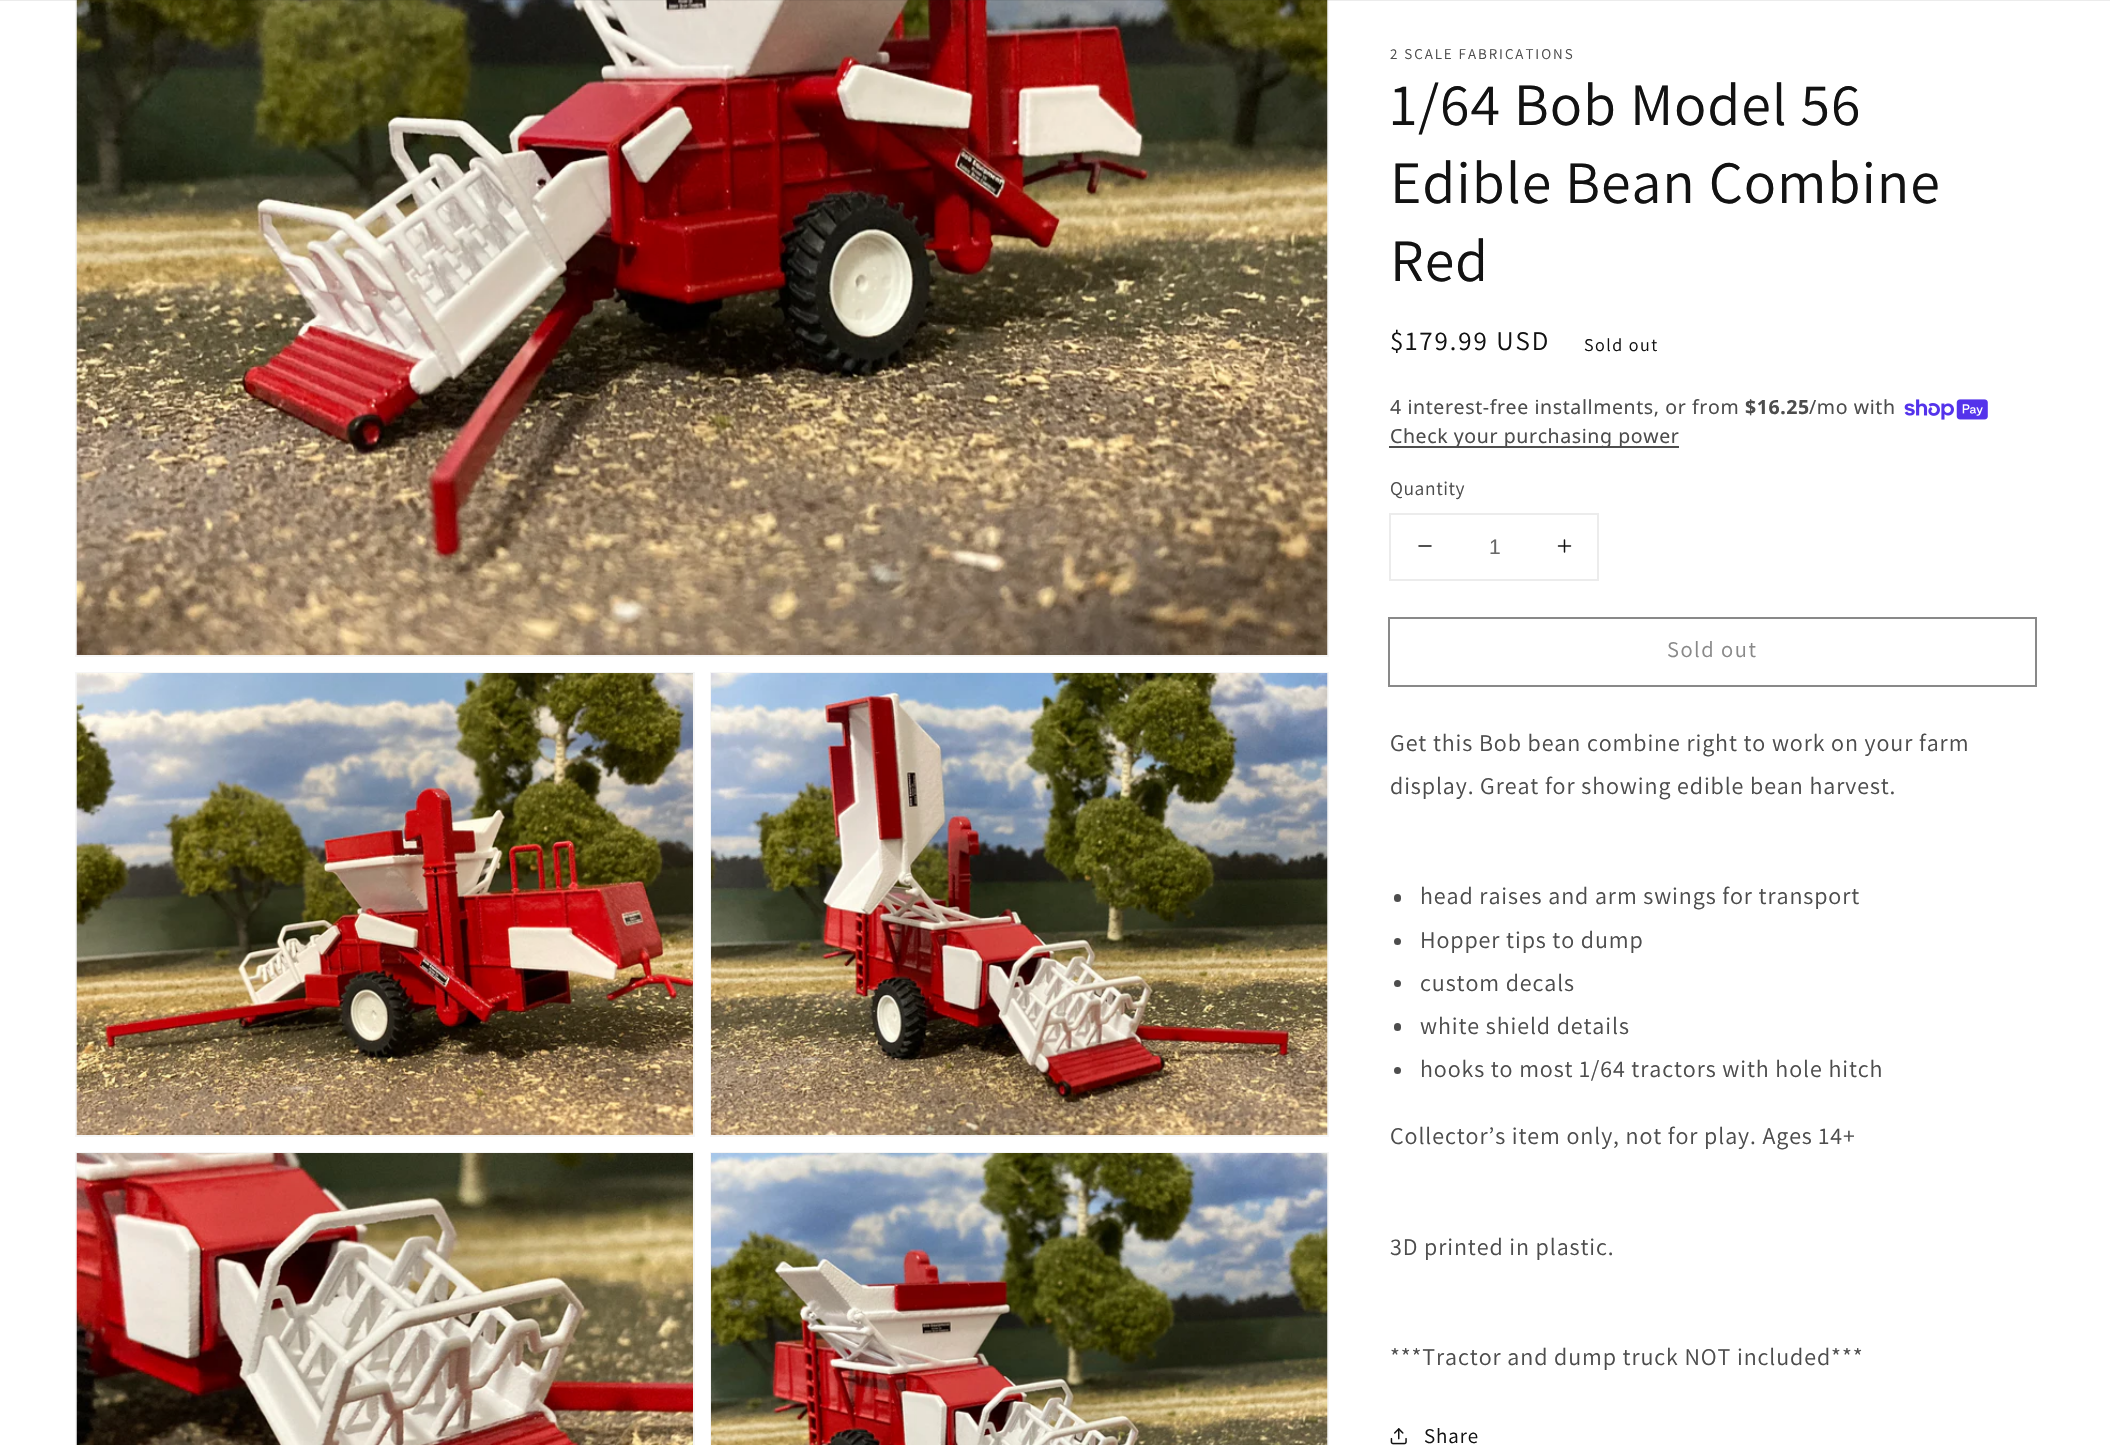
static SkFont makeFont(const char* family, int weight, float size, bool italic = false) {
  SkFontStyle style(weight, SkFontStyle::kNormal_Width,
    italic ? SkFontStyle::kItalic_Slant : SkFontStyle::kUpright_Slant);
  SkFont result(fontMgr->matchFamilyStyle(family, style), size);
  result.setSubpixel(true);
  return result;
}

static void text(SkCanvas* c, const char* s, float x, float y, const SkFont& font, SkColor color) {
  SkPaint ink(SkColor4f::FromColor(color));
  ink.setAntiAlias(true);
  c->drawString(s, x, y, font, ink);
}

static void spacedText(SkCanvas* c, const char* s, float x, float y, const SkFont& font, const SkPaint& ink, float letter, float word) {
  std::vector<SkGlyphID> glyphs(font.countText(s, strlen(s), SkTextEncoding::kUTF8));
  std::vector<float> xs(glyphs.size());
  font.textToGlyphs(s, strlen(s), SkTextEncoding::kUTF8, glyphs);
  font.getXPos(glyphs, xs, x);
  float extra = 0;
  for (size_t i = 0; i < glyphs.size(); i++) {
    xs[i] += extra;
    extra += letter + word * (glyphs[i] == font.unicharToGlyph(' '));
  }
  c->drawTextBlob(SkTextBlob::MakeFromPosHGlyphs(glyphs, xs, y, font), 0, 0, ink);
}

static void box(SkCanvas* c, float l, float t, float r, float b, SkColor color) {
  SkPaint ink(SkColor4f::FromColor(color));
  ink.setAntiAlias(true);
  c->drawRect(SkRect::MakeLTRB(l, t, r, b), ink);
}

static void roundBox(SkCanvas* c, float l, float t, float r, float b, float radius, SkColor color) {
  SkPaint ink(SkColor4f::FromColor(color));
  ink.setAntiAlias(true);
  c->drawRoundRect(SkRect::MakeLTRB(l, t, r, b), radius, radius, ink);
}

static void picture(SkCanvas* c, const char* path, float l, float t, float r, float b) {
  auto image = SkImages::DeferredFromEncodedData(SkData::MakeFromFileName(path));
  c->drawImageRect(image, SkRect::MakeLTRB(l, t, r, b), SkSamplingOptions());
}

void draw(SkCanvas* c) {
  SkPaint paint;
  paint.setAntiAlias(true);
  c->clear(0xffffffff);
  paint.setStyle(SkPaint::kStroke_Style);
  paint.setStrokeWidth(2);
  paint.setColor(0xfff6f6f6);
  c->drawRect(SkRect::MakeLTRB(76, -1, 1328, 656), paint);
  picture(c, "img_01.png", 76, 0, 1328, 655);
  box(c, 0, 0, 2110, 1, 0x14121212);
  c->drawRect(SkRect::MakeLTRB(76, 673, 694, 1136), paint);
  picture(c, "img_02.png", 76, 673, 693, 1135);
  c->drawRect(SkRect::MakeLTRB(711, 673, 1328, 1136), paint);
  picture(c, "img_03.png", 711, 673, 1328, 1135);
  c->drawRect(SkRect::MakeLTRB(76, 1153, 694, 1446), paint);
  picture(c, "img_04.png", 76, 1153, 693, 1445);
  c->drawRect(SkRect::MakeLTRB(711, 1153, 1328, 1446), paint);
  picture(c, "img_05.png", 711, 1153, 1328, 1445);
  SkFont face1 = makeFont("Assistant", 400, 15);
  paint.setStyle(SkPaint::kFill_Style);
  paint.setColor(0xff4d4d4d);
  spacedText(c, "2 SCALE FABRICATIONS", 1390, 59, face1, paint, 1.95f, 0);
  SkFont face2 = makeFont("Assistant", 400, 60);
  paint.setColor(0xff121212);
  spacedText(c, "1/64 Bob Model 56", 1390, 125, face2, paint, 0.9f, 0);
  spacedText(c, "Edible Bean Combine", 1390, 203, face2, paint, 0.9f, 0);
  spacedText(c, "Red", 1390, 281, face2, paint, 0.9f, 0);
  SkFont face3 = makeFont("Assistant", 400, 27);
  spacedText(c, "$179.99 USD", 1390, 350, face3, paint, 1.95f, 0);
  SkFont face4 = makeFont("Assistant", 400, 18);
  spacedText(c, "Sold out", 1584, 351, face4, paint, 1.5f, 0);
  SkFont face5 = makeFont("Noto Sans", 400, 19.5f);
  paint.setColor(0xff4d4d4d);
  spacedText(c, "4 interest-free installments, or from", 1390, 414, face5, paint, 0.6f, 0);
  SkFont face6 = makeFont("Noto Sans", 700, 19.5f);
  spacedText(c, "$16.25", 1745, 414, face6, paint, 0.6f, 0);
  spacedText(c, "/mo with", 1809, 414, face5, paint, 0.6f, 0);
  picture(c, "img_06.png", 1904, 399, 1988, 420);
  box(c, 1389, 446, 1679, 448, 0xff4d4d4d);
  spacedText(c, "Check your purchasing power", 1390, 443, face5, paint, 0.6f, 0);
  SkFont face7 = makeFont("Assistant", 400, 19.5f);
  spacedText(c, "Quantity", 1390, 495, face7, paint, 0.6f, 0);
  paint.setStyle(SkPaint::kStroke_Style);
  paint.setColor(0xffececec);
  c->drawRect(SkRect::MakeLTRB(1390, 514, 1598, 580), paint);
  picture(c, "img_07.png", 1418, 545, 1432, 547);
  SkFont face8 = makeFont("Liberation Sans", 400, 21);
  text(c, "1", 1489, 554, face8, 0xff686868);
  picture(c, "img_08.png", 1557, 539, 1572, 553);
  paint.setColor(0xff898989);
  c->drawRect(SkRect::MakeLTRB(1389, 618, 2036, 686), paint);
  SkFont face9 = makeFont("Assistant", 400, 22.5f);
  paint.setStyle(SkPaint::kFill_Style);
  spacedText(c, "Sold out", 1667, 657, face9, paint, 1.5f, 0);
  SkFont face10 = makeFont("Assistant", 400, 24);
  paint.setColor(0xff4d4d4d);
  spacedText(c, "Get this Bob bean combine right to work on your farm", 1390, 751, face10, paint, 0.9f, 0);
  spacedText(c, "display. Great for showing edible bean harvest.", 1390, 794, face10, paint, 0.9f, 0);
  roundBox(c, 1394, 894, 1401, 902, 3.5f, 0xff4d4d4d);
  spacedText(c, "head raises and arm swings for transport", 1420, 904, face10, paint, 0.9f, 0);
  c->drawCircle(1397.5f, 941.5f, 3.5f, paint);
  spacedText(c, "Hopper tips to dump", 1420, 948, face10, paint, 0.9f, 0);
  c->drawCircle(1397.5f, 983.5f, 3.5f, paint);
  spacedText(c, "custom decals", 1420, 991, face10, paint, 0.9f, 0);
  roundBox(c, 1394, 1023, 1401, 1031, 3.5f, 0xff4d4d4d);
  spacedText(c, "white shield details", 1420, 1034, face10, paint, 0.9f, 0);
  c->drawCircle(1397.5f, 1070.5f, 3.5f, paint);
  spacedText(c, "hooks to most 1/64 tractors with hole hitch", 1420, 1077, face10, paint, 0.9f, 0);
  spacedText(c, "Collector’s item only, not for play. Ages 14+", 1390, 1144, face10, paint, 0.9f, 0);
  spacedText(c, "3D printed in plastic.", 1390, 1255, face10, paint, 0.9f, 0);
  spacedText(c, "***Tractor and dump truck NOT included***", 1390, 1365, face10, paint, 0.9f, 0);
  picture(c, "img_09.png", 1390, 1428, 1407, 1445);
  SkFont face11 = makeFont("Assistant", 400, 21);
  paint.setColor(0xff121212);
  spacedText(c, "Share", 1424, 1443, face11, paint, 0.9f, 0);
}
